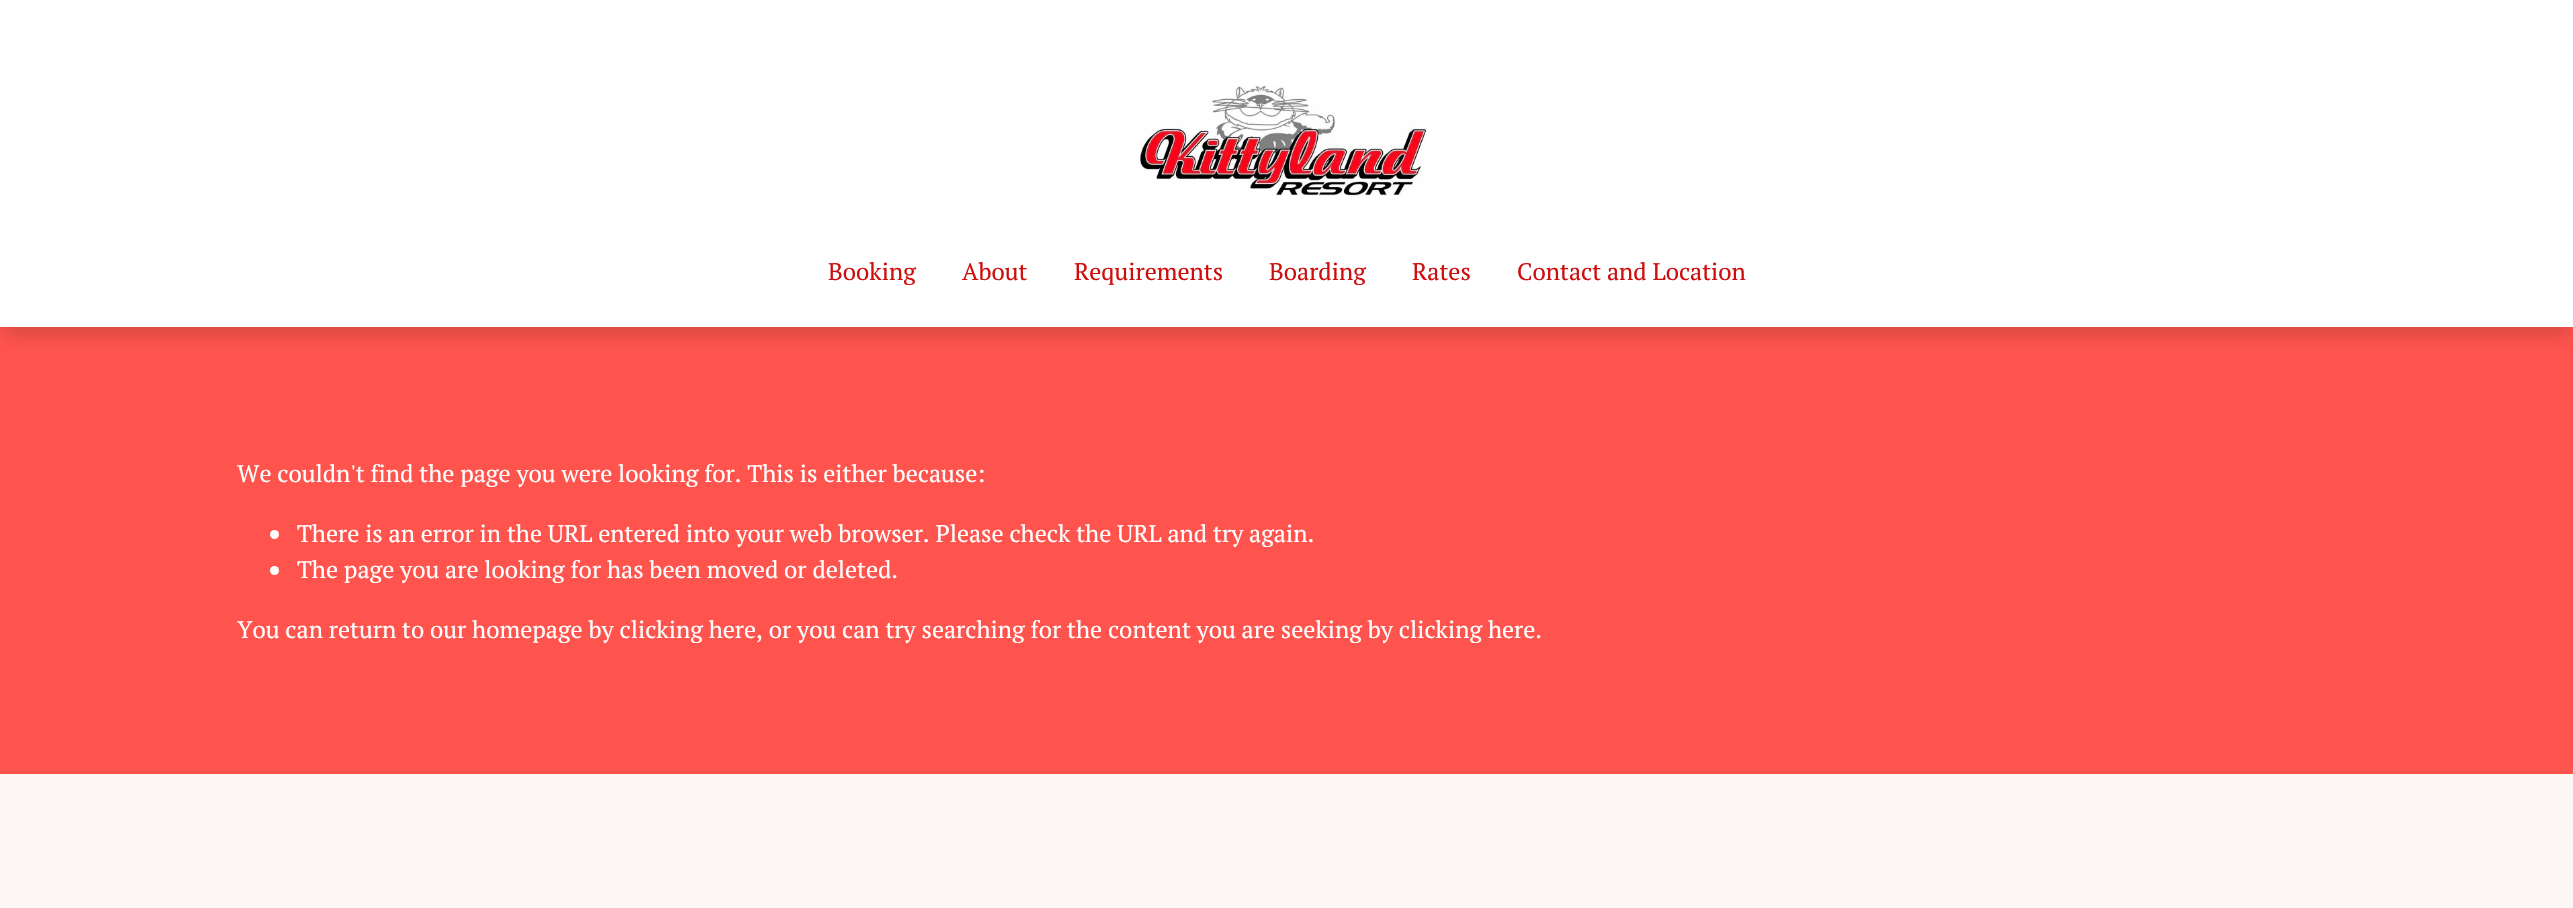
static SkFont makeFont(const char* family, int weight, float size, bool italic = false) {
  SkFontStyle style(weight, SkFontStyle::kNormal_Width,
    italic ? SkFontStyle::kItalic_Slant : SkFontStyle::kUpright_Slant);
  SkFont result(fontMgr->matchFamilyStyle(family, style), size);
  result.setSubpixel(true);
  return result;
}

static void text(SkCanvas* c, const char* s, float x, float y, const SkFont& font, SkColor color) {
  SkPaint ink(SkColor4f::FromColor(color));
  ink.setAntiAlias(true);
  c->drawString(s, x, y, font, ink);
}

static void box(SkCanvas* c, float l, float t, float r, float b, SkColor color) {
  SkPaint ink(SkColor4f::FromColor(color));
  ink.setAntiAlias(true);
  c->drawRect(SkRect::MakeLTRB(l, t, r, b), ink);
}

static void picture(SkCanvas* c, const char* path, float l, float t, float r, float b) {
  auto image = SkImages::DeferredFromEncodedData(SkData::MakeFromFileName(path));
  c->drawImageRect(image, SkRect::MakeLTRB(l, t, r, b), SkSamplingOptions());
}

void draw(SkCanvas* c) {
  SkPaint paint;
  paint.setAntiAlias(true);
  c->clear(0xffff544d);
  box(c, 0, 0, 2573, 327, 0xffffffff);
  c->save();
  c->clipRect(SkRect::MakeLTRB(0, 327, 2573, 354));
  paint.setColor(0xffd94741);
  paint.setMaskFilter(SkMaskFilter::MakeBlur(kNormal_SkBlurStyle, 9));
  c->drawRect(SkRect::MakeLTRB(5, 18, 2570, 336), paint);
  paint.setMaskFilter(nullptr);
  c->restore();
  picture(c, "img_01.png", 1140, 85, 1427, 196);
  SkFont face1 = makeFont("PT Serif", 400, 24);
  text(c, "Booking", 828, 280, face1, 0xffce0d0d);
  text(c, "About", 962, 280, face1, 0xffce0d0d);
  text(c, "Requirements", 1074, 280, face1, 0xffce0d0d);
  text(c, "Boarding", 1269, 280, face1, 0xffce0d0d);
  text(c, "Rates", 1412, 280, face1, 0xffce0d0d);
  text(c, "Contact and Location", 1517, 280, face1, 0xffce0d0d);
  text(c, "We couldn't find the page you were looking for. This is either because:", 237, 482, face1, 0xffffffff);
  paint.setColor(0xffffffff);
  c->drawCircle(274.5f, 534.5f, 4.5f, paint);
  text(c, "There is an error in the URL entered into your web browser. Please check the URL and try again.", 297, 542, face1, 0xffffffff);
  c->drawCircle(274.5f, 570.5f, 4.5f, paint);
  text(c, "The page you are looking for has been moved or deleted.", 297, 578, face1, 0xffffffff);
  text(c, "You can return to our homepage by clicking here, or you can try searching for the content you are seeking by clicking here.", 237, 638, face1, 0xffffffff);
  box(c, 0, 774, 2573, 908, 0xfffdf6f4);
}
